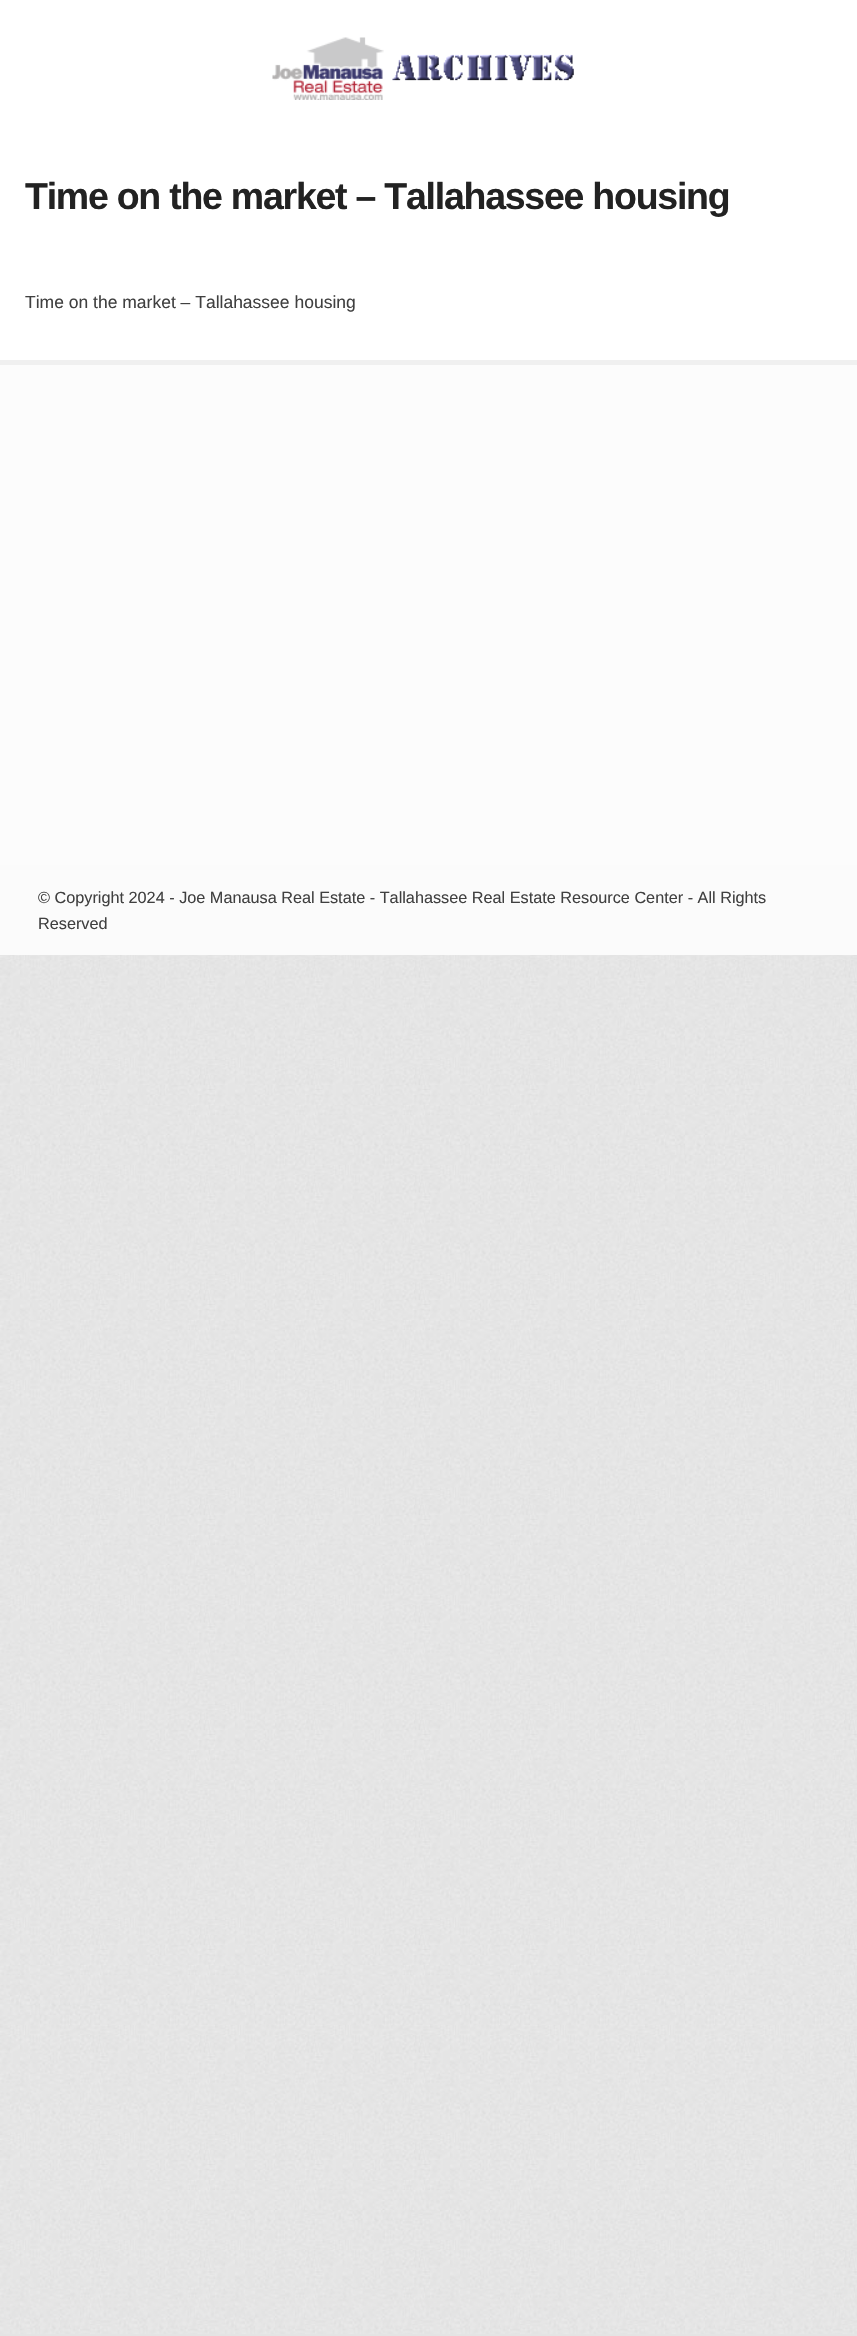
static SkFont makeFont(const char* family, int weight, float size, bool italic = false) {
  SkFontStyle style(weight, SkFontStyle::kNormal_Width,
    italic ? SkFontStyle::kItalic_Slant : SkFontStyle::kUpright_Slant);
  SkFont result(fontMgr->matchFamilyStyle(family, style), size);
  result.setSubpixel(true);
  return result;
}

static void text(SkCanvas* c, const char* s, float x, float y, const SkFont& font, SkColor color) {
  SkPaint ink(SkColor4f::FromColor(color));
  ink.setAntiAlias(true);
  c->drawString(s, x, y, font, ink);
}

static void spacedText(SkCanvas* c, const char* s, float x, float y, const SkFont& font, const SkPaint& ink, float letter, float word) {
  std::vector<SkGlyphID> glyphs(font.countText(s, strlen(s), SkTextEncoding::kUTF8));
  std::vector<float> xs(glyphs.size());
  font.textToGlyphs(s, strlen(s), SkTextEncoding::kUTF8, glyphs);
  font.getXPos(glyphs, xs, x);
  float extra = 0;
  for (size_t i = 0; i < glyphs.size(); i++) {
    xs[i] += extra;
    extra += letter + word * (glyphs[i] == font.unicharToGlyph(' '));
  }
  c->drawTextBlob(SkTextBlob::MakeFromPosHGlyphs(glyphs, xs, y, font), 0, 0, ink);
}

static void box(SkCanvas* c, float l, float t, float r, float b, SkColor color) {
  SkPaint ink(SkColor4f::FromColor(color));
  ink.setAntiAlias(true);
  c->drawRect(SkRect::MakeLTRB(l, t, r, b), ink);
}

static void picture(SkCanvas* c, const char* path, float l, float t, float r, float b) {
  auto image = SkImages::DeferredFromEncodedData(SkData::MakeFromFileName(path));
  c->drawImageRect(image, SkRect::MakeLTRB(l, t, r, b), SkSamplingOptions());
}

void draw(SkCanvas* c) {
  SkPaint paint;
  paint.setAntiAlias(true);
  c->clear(0xffe4e4e4);
  picture(c, "img_01.png", 0, 955, 857, 2334);
  box(c, 0, 0, 857, 360, 0xffffffff);
  picture(c, "img_02.png", 272, 37, 574, 100);
  SkFont face1 = makeFont("Liberation Sans", 700, 37.5f);
  paint.setColor(0xff222222);
  spacedText(c, "Time on the market – Tallahassee housing", 25, 209, face1, paint, -1.25f, 0);
  SkFont face2 = makeFont("Liberation Sans", 400, 17.5f);
  text(c, "Time on the market – Tallahassee housing", 25, 308, face2, 0xff404040);
  box(c, 0, 365, 857, 865, 0xfffcfcfc);
  box(c, 0, 360, 857, 365, 0xfff0f0f0);
  box(c, 0, 865, 857, 955, 0xfffbfbfb);
  SkFont face3 = makeFont("Liberation Sans", 400, 16.25f);
  text(c, "© Copyright 2024 - Joe Manausa Real Estate - Tallahassee Real Estate Resource Center - All Rights", 38, 903, face3, 0xff404040);
  text(c, "Reserved", 38, 929, face3, 0xff404040);
}
